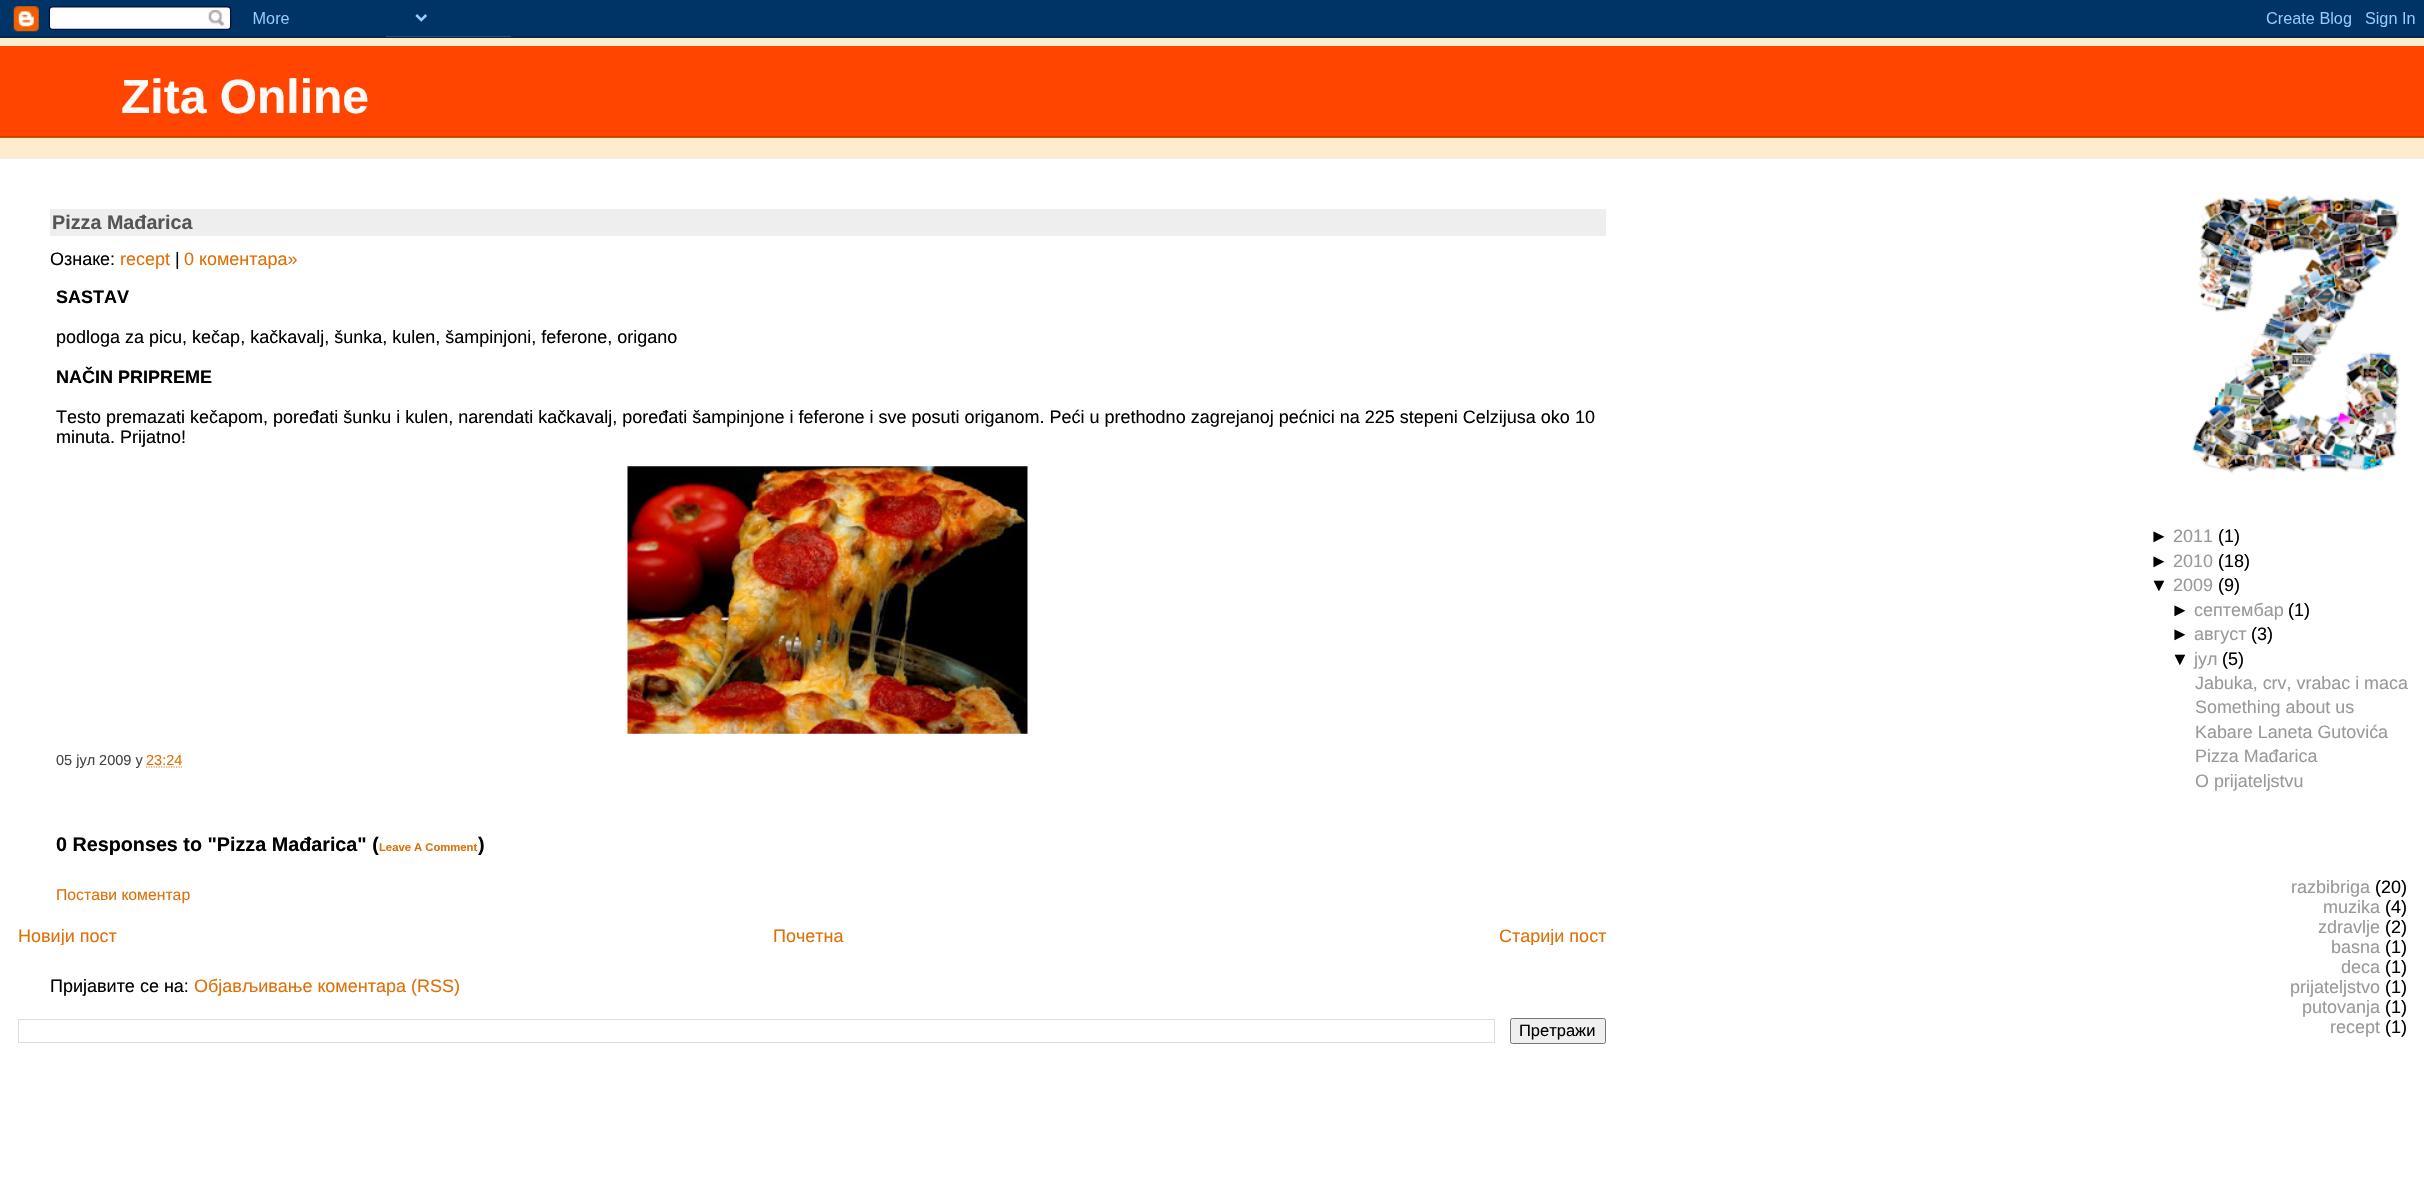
static SkFont makeFont(const char* family, int weight, float size, bool italic = false) {
  SkFontStyle style(weight, SkFontStyle::kNormal_Width,
    italic ? SkFontStyle::kItalic_Slant : SkFontStyle::kUpright_Slant);
  SkFont result(fontMgr->matchFamilyStyle(family, style), size);
  result.setSubpixel(true);
  return result;
}

static void text(SkCanvas* c, const char* s, float x, float y, const SkFont& font, SkColor color) {
  SkPaint ink(SkColor4f::FromColor(color));
  ink.setAntiAlias(true);
  c->drawString(s, x, y, font, ink);
}

static void box(SkCanvas* c, float l, float t, float r, float b, SkColor color) {
  SkPaint ink(SkColor4f::FromColor(color));
  ink.setAntiAlias(true);
  c->drawRect(SkRect::MakeLTRB(l, t, r, b), ink);
}

static void picture(SkCanvas* c, const char* path, float l, float t, float r, float b) {
  auto image = SkImages::DeferredFromEncodedData(SkData::MakeFromFileName(path));
  c->drawImageRect(image, SkRect::MakeLTRB(l, t, r, b), SkSamplingOptions());
}

void draw(SkCanvas* c) {
  SkPaint paint;
  paint.setAntiAlias(true);
  c->clear(0xffffffff);
  picture(c, "img_01.png", 0, 0, 2424, 38);
  box(c, 0, 38, 2424, 158, 0xffffebcd);
  box(c, 0, 158, 2424, 159, 0xffeeeeee);
  box(c, 0, 46, 2424, 138, 0xffff4500);
  box(c, 0, 136, 2424, 137, 0xff9e5205);
  SkFont face1 = makeFont("Liberation Sans", 700, 48);
  text(c, "Zita Online", 121, 113, face1, 0xfffffafa);
  box(c, 50, 209, 1606, 236, 0xffeeeeee);
  SkFont face2 = makeFont("Liberation Sans", 700, 19.75f);
  text(c, "Pizza Mađarica", 52, 229, face2, 0xff555555);
  SkFont face3 = makeFont("Liberation Sans", 400, 18);
  text(c, "Ознаке:", 50, 265, face3, 0xff000000);
  text(c, "recept", 120, 265, face3, 0xffde7008);
  text(c, "|", 175, 265, face3, 0xff000000);
  text(c, "0 коментара»", 184, 265, face3, 0xffde7008);
  SkFont face4 = makeFont("Liberation Sans", 700, 18);
  text(c, "SASTAV", 56, 303, face4, 0xff000000);
  text(c, "podloga za picu, kečap, kačkavalj, šunka, kulen, šampinjoni, feferone, origano", 56, 343, face3, 0xff000000);
  text(c, "NAČIN PRIPREME", 56, 383, face4, 0xff000000);
  text(c, "Testo premazati kečapom, poređati šunku i kulen, narendati kačkavalj, poređati šampinjone i feferone i sve posuti origanom. Peći u prethodno zagrejanoj pećnici na 225 stepeni Celzijusa oko 10", 56, 423, face3, 0xff000000);
  text(c, "minuta. Prijatno!", 56, 443, face3, 0xff000000);
  picture(c, "img_02.png", 627, 466, 1028, 734);
  SkFont face5 = makeFont("Liberation Sans", 400, 14.5f);
  text(c, "05 јул 2009 у", 56, 765, face5, 0xff444444);
  text(c, "23:24", 146, 765, face5, 0xffde7008);
  paint.setStyle(SkPaint::kStroke_Style);
  paint.setStrokeWidth(1.2f);
  paint.setColor(0xffde7008);
  paint.setPathEffect(SkDashPathEffect::Make({{1.25f, 1.25f}}, 0));
  c->drawPath(SkPathBuilder().moveTo(146, 767).lineTo(182, 767).detach(), paint);
  paint.setPathEffect(nullptr);
  text(c, "0 Responses to \"Pizza Mađarica\" (", 56, 851, face2, 0xff000000);
  SkFont face6 = makeFont("Liberation Sans", 700, 11.25f);
  text(c, "Leave A Comment", 379, 851, face6, 0xffde7008);
  text(c, ")", 478, 851, face2, 0xff000000);
  SkFont face7 = makeFont("Liberation Sans", 400, 15.75f);
  text(c, "Постави коментар", 56, 900, face7, 0xffde7008);
  c->save();
  c->clipRect(SkRect::MakeLTRB(18, 925, 1606, 945));
  text(c, "Новији пост", 18, 942, face3, 0xffde7008);
  c->restore();
  text(c, "Почетна", 773, 942, face3, 0xffde7008);
  c->save();
  c->clipRect(SkRect::MakeLTRB(18, 925, 1606, 945));
  text(c, "Старији пост", 1499, 942, face3, 0xffde7008);
  c->restore();
  text(c, "Пријавите се на:", 50, 992, face3, 0xff000000);
  text(c, "Објављивање коментара (RSS)", 194, 992, face3, 0xffde7008);
  paint.setStrokeWidth(1);
  paint.setColor(0xffdddddd);
  c->drawRect(SkRect::MakeLTRB(18.5f, 1019.5f, 1494.5f, 1042.5f), paint);
  paint.setStyle(SkPaint::kFill_Style);
  paint.setColor(0xffefefef);
  c->drawRoundRect(SkRect::MakeLTRB(1510.5f, 1018.5f, 1605.5f, 1043.5f), 2, 2, paint);
  paint.setStyle(SkPaint::kStroke_Style);
  paint.setColor(0xff767676);
  c->drawRoundRect(SkRect::MakeLTRB(1510.5f, 1018.5f, 1605.5f, 1043.5f), 2, 2, paint);
  SkFont face8 = makeFont("Liberation Sans", 400, 16.5f);
  text(c, "Претражи", 1519, 1036, face8, 0xff000000);
  picture(c, "img_03.png", 2192, 195, 2400, 474);
  text(c, "►", 2150, 542, face3, 0xff000000);
  text(c, "2011", 2173, 542, face3, 0xff999999);
  text(c, "(1)", 2218, 542, face3, 0xff000000);
  text(c, "►", 2150, 567, face3, 0xff000000);
  text(c, "2010", 2173, 567, face3, 0xff999999);
  text(c, "(18)", 2218, 567, face3, 0xff000000);
  text(c, "▼", 2150, 591, face3, 0xff000000);
  text(c, "2009", 2173, 591, face3, 0xff999999);
  text(c, "(9)", 2218, 591, face3, 0xff000000);
  text(c, "►", 2171, 616, face3, 0xff000000);
  text(c, "септембар", 2194, 616, face3, 0xff999999);
  text(c, "(1)", 2288, 616, face3, 0xff000000);
  text(c, "►", 2171, 640, face3, 0xff000000);
  text(c, "август", 2194, 640, face3, 0xff999999);
  text(c, "(3)", 2251, 640, face3, 0xff000000);
  text(c, "▼", 2171, 665, face3, 0xff000000);
  text(c, "јул", 2194, 665, face3, 0xff999999);
  text(c, "(5)", 2222, 665, face3, 0xff000000);
  SkFont face9 = makeFont("Liberation Sans", 400, 17.9f);
  text(c, "Jabuka, crv, vrabac i maca", 2195, 689, face9, 0xff999999);
  text(c, "Something about us", 2195, 713, face9, 0xff999999);
  text(c, "Kabare Laneta Gutovića", 2195, 738, face9, 0xff999999);
  text(c, "Pizza Mađarica", 2195, 762, face9, 0xff999999);
  text(c, "O prijateljstvu", 2195, 787, face9, 0xff999999);
  text(c, "razbibriga", 2291, 893, face3, 0xff999999);
  text(c, "(20)", 2375, 893, face3, 0xff000000);
  text(c, "muzika", 2323, 913, face3, 0xff999999);
  text(c, "(4)", 2385, 913, face3, 0xff000000);
  text(c, "zdravlje", 2318, 933, face3, 0xff999999);
  text(c, "(2)", 2385, 933, face3, 0xff000000);
  text(c, "basna", 2331, 953, face3, 0xff999999);
  text(c, "(1)", 2385, 953, face3, 0xff000000);
  text(c, "deca", 2341, 973, face3, 0xff999999);
  text(c, "(1)", 2385, 973, face3, 0xff000000);
  text(c, "prijateljstvo", 2290, 993, face3, 0xff999999);
  text(c, "(1)", 2385, 993, face3, 0xff000000);
  text(c, "putovanja", 2302, 1013, face3, 0xff999999);
  text(c, "(1)", 2385, 1013, face3, 0xff000000);
  text(c, "recept", 2330, 1033, face3, 0xff999999);
  text(c, "(1)", 2385, 1033, face3, 0xff000000);
}
